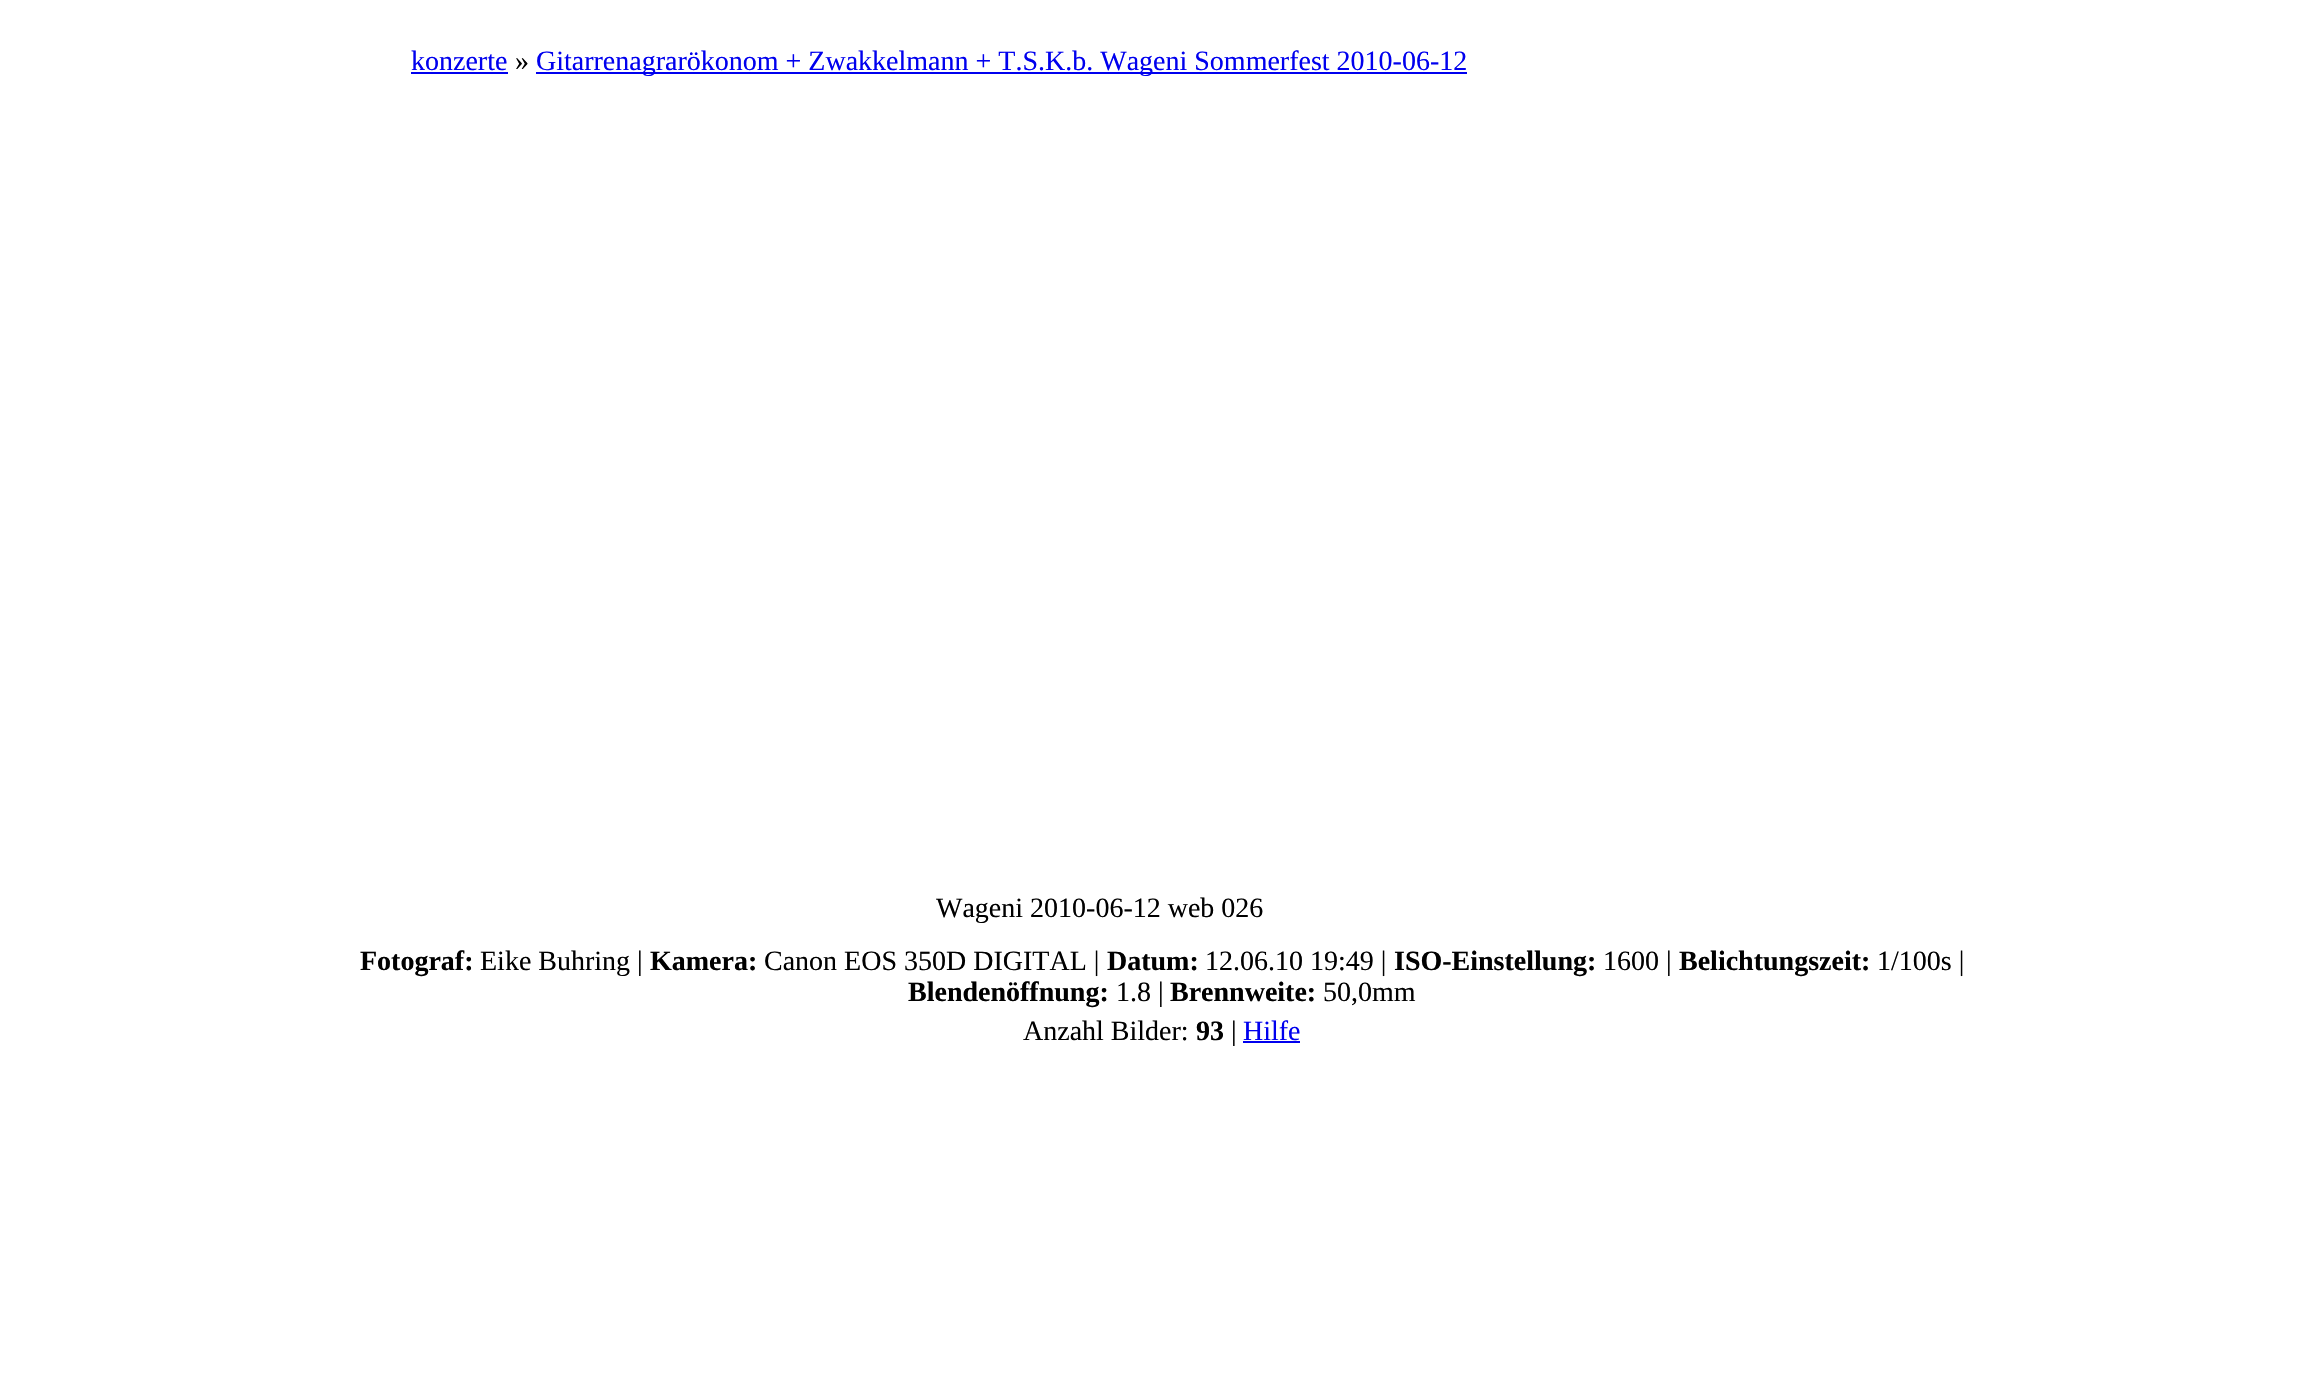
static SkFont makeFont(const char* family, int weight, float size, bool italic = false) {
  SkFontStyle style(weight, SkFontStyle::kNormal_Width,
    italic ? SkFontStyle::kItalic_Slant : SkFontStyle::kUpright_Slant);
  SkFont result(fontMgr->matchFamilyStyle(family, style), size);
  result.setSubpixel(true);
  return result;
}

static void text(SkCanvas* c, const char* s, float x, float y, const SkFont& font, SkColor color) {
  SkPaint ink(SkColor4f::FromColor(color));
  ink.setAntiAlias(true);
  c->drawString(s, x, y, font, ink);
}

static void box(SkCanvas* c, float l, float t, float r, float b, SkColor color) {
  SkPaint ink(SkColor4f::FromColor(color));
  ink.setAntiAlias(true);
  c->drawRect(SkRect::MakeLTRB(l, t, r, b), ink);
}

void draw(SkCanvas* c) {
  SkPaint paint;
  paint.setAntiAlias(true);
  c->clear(0xffffffff);
  SkFont face1 = makeFont("Liberation Serif", 400, 28);
  text(c, "konzerte", 411, 70, face1, 0xff0000ee);
  box(c, 411, 72, 508, 74, 0xff0000ee);
  text(c, "»", 515, 70, face1, 0xff000000);
  box(c, 536, 72, 1467, 74, 0xff0000ee);
  text(c, "Gitarrenagrarökonom + Zwakkelmann + T.S.K.b. Wageni Sommerfest 2010-06-12", 536, 70, face1, 0xff0000ee);
  text(c, "Wageni 2010-06-12 web 026", 936, 917, face1, 0xff000000);
  SkFont face2 = makeFont("Liberation Serif", 700, 28);
  text(c, "Fotograf:", 360, 970, face2, 0xff000000);
  text(c, "Eike Buhring |", 480, 970, face1, 0xff000000);
  text(c, "Kamera:", 650, 970, face2, 0xff000000);
  text(c, "Canon EOS 350D DIGITAL |", 764, 970, face1, 0xff000000);
  text(c, "Datum:", 1107, 970, face2, 0xff000000);
  text(c, "12.06.10 19:49 |", 1205, 970, face1, 0xff000000);
  text(c, "ISO-Einstellung:", 1394, 970, face2, 0xff000000);
  text(c, "1600 |", 1603, 970, face1, 0xff000000);
  text(c, "Belichtungszeit:", 1679, 970, face2, 0xff000000);
  text(c, "1/100s |", 1877, 970, face1, 0xff000000);
  text(c, "Blendenöffnung:", 908, 1001, face2, 0xff000000);
  text(c, "1.8 |", 1116, 1001, face1, 0xff000000);
  text(c, "Brennweite:", 1170, 1001, face2, 0xff000000);
  text(c, "50,0mm", 1323, 1001, face1, 0xff000000);
  text(c, "Anzahl Bilder:", 1023, 1040, face1, 0xff000000);
  text(c, "93", 1196, 1040, face2, 0xff000000);
  text(c, "|", 1231, 1040, face1, 0xff000000);
  text(c, "Hilfe", 1243, 1040, face1, 0xff0000ee);
  box(c, 1243, 1041, 1300, 1043, 0xff0000ee);
}
